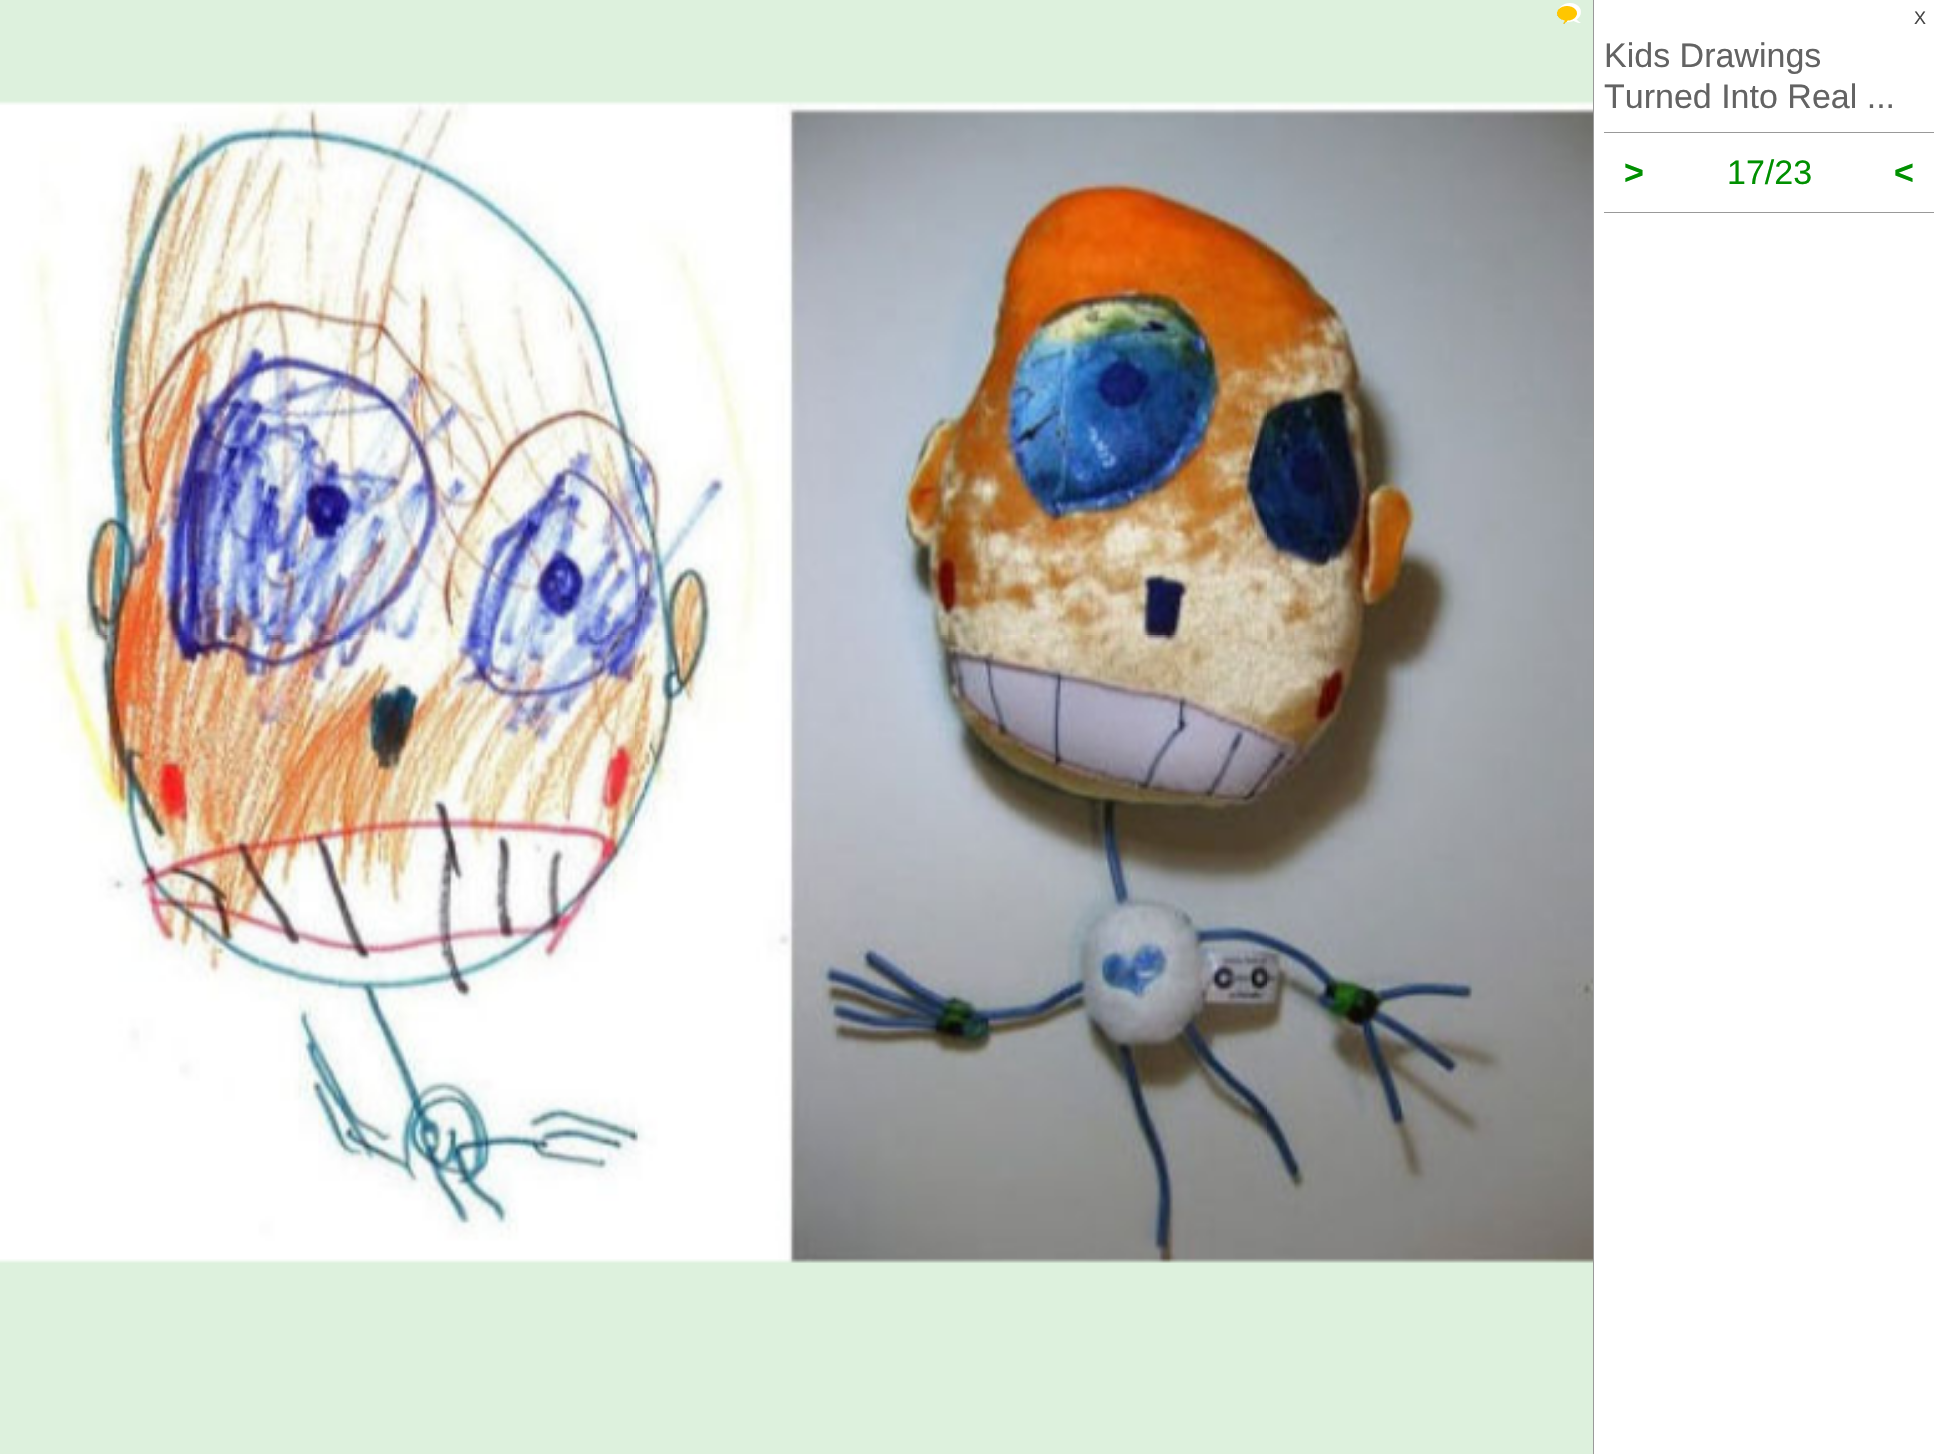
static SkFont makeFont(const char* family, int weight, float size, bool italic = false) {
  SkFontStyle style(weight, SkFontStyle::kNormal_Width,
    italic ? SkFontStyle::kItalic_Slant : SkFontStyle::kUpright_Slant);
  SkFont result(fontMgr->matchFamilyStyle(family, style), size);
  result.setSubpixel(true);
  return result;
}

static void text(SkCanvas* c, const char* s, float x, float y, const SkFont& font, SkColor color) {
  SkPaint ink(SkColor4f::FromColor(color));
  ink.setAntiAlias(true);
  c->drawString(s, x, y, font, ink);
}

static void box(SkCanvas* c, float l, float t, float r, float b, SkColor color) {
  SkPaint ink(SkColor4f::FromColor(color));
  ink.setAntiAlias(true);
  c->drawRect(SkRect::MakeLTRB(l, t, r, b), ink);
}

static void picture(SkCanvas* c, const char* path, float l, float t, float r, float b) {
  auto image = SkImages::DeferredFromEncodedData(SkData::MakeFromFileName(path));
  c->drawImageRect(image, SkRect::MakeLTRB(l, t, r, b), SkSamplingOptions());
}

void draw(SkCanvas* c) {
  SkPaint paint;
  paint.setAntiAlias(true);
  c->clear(0xffddf1dd);
  picture(c, "img_01.png", 1557, 3, 1581, 24);
  picture(c, "img_02.png", 0, 101, 1593, 1263);
  box(c, 1594, 0, 1944, 1454, 0xffffffff);
  box(c, 1593, 0, 1594, 1454, 0xff999999);
  SkFont face1 = makeFont("Liberation Sans", 400, 18);
  text(c, "X", 1914, 24, face1, 0xff444444);
  SkFont face2 = makeFont("Liberation Sans", 400, 34);
  text(c, "Kids Drawings", 1604, 67, face2, 0xff636363);
  text(c, "Turned Into Real ...", 1604, 108, face2, 0xff636363);
  box(c, 1604, 132, 1934, 133, 0xff999999);
  box(c, 1604, 212, 1934, 213, 0xff999999);
  SkFont face3 = makeFont("Liberation Sans", 700, 34);
  text(c, ">", 1624, 184, face3, 0xff009000);
  text(c, "17/23", 1727, 184, face2, 0xff009000);
  text(c, "<", 1894, 184, face3, 0xff009000);
}
